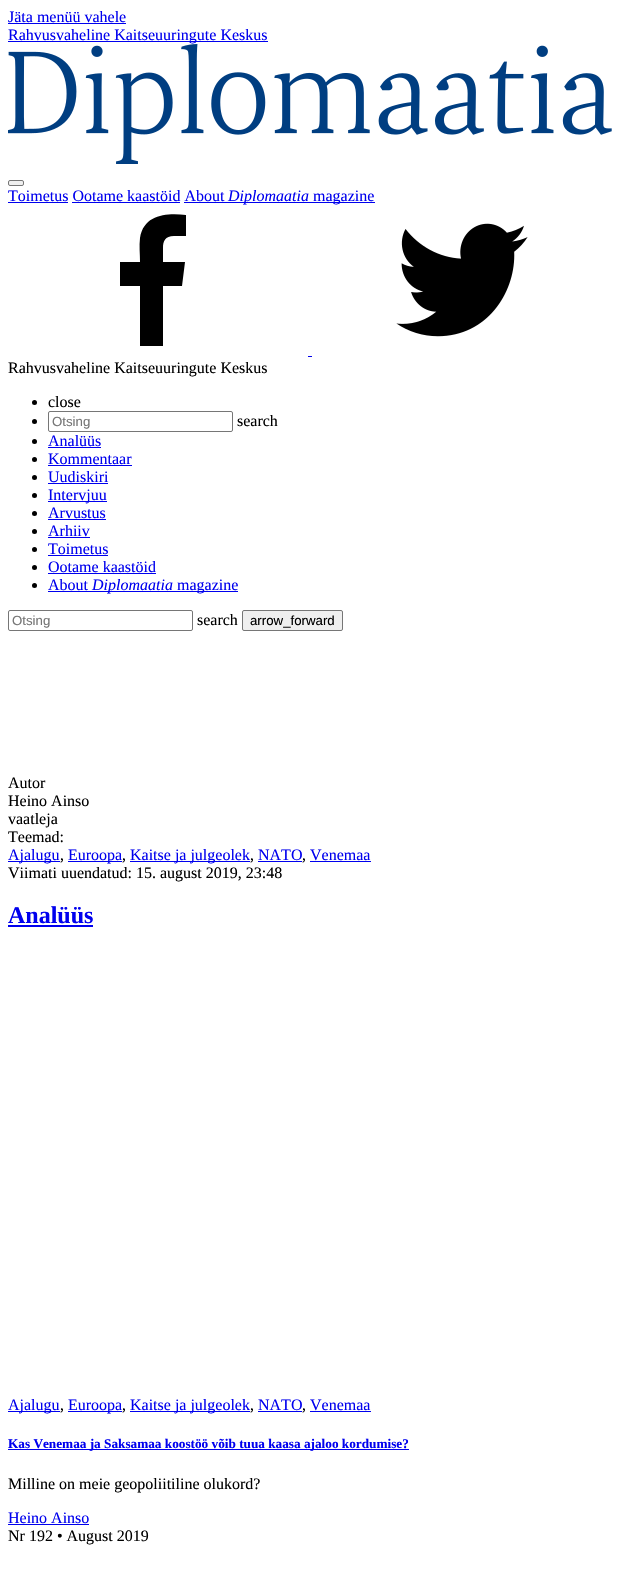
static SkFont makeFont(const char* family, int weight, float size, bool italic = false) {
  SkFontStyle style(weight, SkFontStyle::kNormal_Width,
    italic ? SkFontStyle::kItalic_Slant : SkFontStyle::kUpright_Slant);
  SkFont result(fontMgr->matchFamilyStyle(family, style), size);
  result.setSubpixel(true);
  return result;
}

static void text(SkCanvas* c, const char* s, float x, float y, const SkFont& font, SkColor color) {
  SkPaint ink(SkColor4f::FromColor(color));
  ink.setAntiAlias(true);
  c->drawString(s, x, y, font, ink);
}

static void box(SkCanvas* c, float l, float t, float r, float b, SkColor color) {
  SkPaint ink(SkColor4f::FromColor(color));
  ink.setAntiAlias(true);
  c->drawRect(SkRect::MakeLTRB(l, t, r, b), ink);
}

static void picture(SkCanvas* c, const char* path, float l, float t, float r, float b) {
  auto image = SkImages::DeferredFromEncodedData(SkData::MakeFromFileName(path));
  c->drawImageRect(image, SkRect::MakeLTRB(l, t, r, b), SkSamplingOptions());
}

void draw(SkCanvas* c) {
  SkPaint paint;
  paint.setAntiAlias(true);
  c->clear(0xffffffff);
  SkFont face1 = makeFont("Liberation Serif", 400, 16);
  text(c, "Jäta menüü vahele", 8, 22, face1, 0xff0000ee);
  box(c, 8, 23, 126, 24, 0xff0000ee);
  box(c, 8, 41, 268, 42, 0xff0000ee);
  text(c, "Rahvusvaheline Kaitseuuringute Keskus", 8, 40, face1, 0xff0000ee);
  picture(c, "img_01.png", 8, 44, 612, 164);
  paint.setColor(0xffefefef);
  c->drawRoundRect(SkRect::MakeLTRB(8.5f, 180.5f, 23.5f, 185.5f), 1.5f, 1.5f, paint);
  paint.setStyle(SkPaint::kStroke_Style);
  paint.setStrokeWidth(1);
  paint.setColor(0xff767676);
  c->drawRoundRect(SkRect::MakeLTRB(8.5f, 180.5f, 23.5f, 185.5f), 1.5f, 1.5f, paint);
  text(c, "Toimetus Ootame kaastöid About", 8, 201, face1, 0xff0000ee);
  box(c, 8, 202, 68, 203, 0xff0000ee);
  box(c, 184, 202, 375, 203, 0xff0000ee);
  SkFont face2 = makeFont("Liberation Serif", 400, 16, true);
  text(c, "Diplomaatia", 228, 201, face2, 0xff0000ee);
  text(c, "magazine", 313, 201, face1, 0xff0000ee);
  box(c, 72, 202, 180, 203, 0xff0000ee);
  paint.setStyle(SkPaint::kFill_Style);
  paint.setColor(0xff000000);
  c->drawPath(SkPathBuilder().moveTo(120, 286).lineTo(140, 286).lineTo(140, 346).lineTo(163, 346).lineTo(163, 286).lineTo(182, 286).lineTo(185, 262).lineTo(163, 262).lineTo(163, 248).cubicTo(163, 241, 165, 236, 174, 236).lineTo(186, 236).lineTo(186, 215).cubicTo(167, 213, 144, 214, 140, 238).cubicTo(139, 246, 140, 254, 140, 262).lineTo(120, 262).close().detach(), paint);
  picture(c, "img_02.png", 396, 223, 528, 337);
  box(c, 308, 356, 312, 357, 0xff0000ee);
  text(c, "Rahvusvaheline Kaitseuuringute Keskus", 8, 373, face1, 0xff000000);
  c->drawCircle(34.5f, 402.5f, 2.5f, paint);
  text(c, "close", 48, 407, face1, 0xff000000);
  c->drawCircle(34.5f, 421.5f, 2.5f, paint);
  paint.setStyle(SkPaint::kStroke_Style);
  paint.setColor(0xff767676);
  c->drawRoundRect(SkRect::MakeLTRB(48.5f, 411.5f, 232.5f, 431.5f), 1.5f, 1.5f, paint);
  SkFont face3 = makeFont("Liberation Sans", 400, 13.25f);
  text(c, "Otsing", 52, 426, face3, 0xff757575);
  text(c, "search", 237, 426, face1, 0xff000000);
  paint.setStyle(SkPaint::kFill_Style);
  paint.setColor(0xff000000);
  c->drawCircle(34.5f, 441.5f, 2.5f, paint);
  text(c, "Analüüs", 48, 446, face1, 0xff0000ee);
  box(c, 48, 447, 101, 448, 0xff0000ee);
  c->drawCircle(34.5f, 459.5f, 2.5f, paint);
  text(c, "Kommentaar", 48, 464, face1, 0xff0000ee);
  box(c, 48, 465, 132, 466, 0xff0000ee);
  c->drawCircle(34.5f, 477.5f, 2.5f, paint);
  text(c, "Uudiskiri", 48, 482, face1, 0xff0000ee);
  box(c, 48, 483, 108, 484, 0xff0000ee);
  c->drawCircle(34.5f, 495.5f, 2.5f, paint);
  box(c, 48, 501, 107, 502, 0xff0000ee);
  text(c, "Intervjuu", 48, 500, face1, 0xff0000ee);
  c->drawCircle(34.5f, 513.5f, 2.5f, paint);
  text(c, "Arvustus", 48, 518, face1, 0xff0000ee);
  box(c, 48, 519, 106, 520, 0xff0000ee);
  c->drawCircle(34.5f, 531.5f, 2.5f, paint);
  text(c, "Arhiiv", 48, 536, face1, 0xff0000ee);
  box(c, 48, 537, 90, 538, 0xff0000ee);
  c->drawCircle(34.5f, 549.5f, 2.5f, paint);
  text(c, "Toimetus", 48, 554, face1, 0xff0000ee);
  box(c, 48, 555, 108, 556, 0xff0000ee);
  c->drawCircle(34.5f, 567.5f, 2.5f, paint);
  text(c, "Ootame kaastöid", 48, 572, face1, 0xff0000ee);
  box(c, 48, 573, 156, 574, 0xff0000ee);
  c->drawCircle(34.5f, 585.5f, 2.5f, paint);
  text(c, "About", 48, 590, face1, 0xff0000ee);
  box(c, 48, 591, 238, 592, 0xff0000ee);
  text(c, "Diplomaatia", 92, 590, face2, 0xff0000ee);
  text(c, "magazine", 177, 590, face1, 0xff0000ee);
  paint.setStyle(SkPaint::kStroke_Style);
  paint.setColor(0xff767676);
  c->drawRoundRect(SkRect::MakeLTRB(8.5f, 610.5f, 192.5f, 630.5f), 1.5f, 1.5f, paint);
  text(c, "Otsing", 12, 625, face3, 0xff757575);
  text(c, "search", 197, 625, face1, 0xff000000);
  paint.setStyle(SkPaint::kFill_Style);
  paint.setColor(0xffefefef);
  c->drawRoundRect(SkRect::MakeLTRB(242.5f, 610.5f, 342.5f, 630.5f), 1.5f, 1.5f, paint);
  paint.setStyle(SkPaint::kStroke_Style);
  paint.setColor(0xff767676);
  c->drawRoundRect(SkRect::MakeLTRB(242.5f, 610.5f, 342.5f, 630.5f), 1.5f, 1.5f, paint);
  text(c, "arrow_forward", 250, 625, face3, 0xff000000);
  text(c, "Autor", 8, 788, face1, 0xff000000);
  text(c, "Heino Ainso", 8, 806, face1, 0xff000000);
  text(c, "vaatleja", 8, 824, face1, 0xff000000);
  text(c, "Teemad:", 8, 842, face1, 0xff000000);
  box(c, 8, 861, 60, 862, 0xff0000ee);
  text(c, "Ajalugu", 8, 860, face1, 0xff0000ee);
  text(c, ",", 60, 860, face1, 0xff000000);
  box(c, 68, 861, 122, 862, 0xff0000ee);
  text(c, "Euroopa", 68, 860, face1, 0xff0000ee);
  text(c, ",", 122, 860, face1, 0xff000000);
  box(c, 130, 861, 250, 862, 0xff0000ee);
  text(c, "Kaitse ja julgeolek", 130, 860, face1, 0xff0000ee);
  text(c, ",", 250, 860, face1, 0xff000000);
  text(c, "NATO", 258, 860, face1, 0xff0000ee);
  box(c, 258, 861, 302, 862, 0xff0000ee);
  text(c, ",", 302, 860, face1, 0xff000000);
  text(c, "Venemaa", 310, 860, face1, 0xff0000ee);
  box(c, 310, 861, 371, 862, 0xff0000ee);
  text(c, "Viimati uuendatud: 15. august 2019, 23:48", 8, 878, face1, 0xff000000);
  SkFont face4 = makeFont("Liberation Serif", 700, 24);
  text(c, "Analüüs", 8, 923, face4, 0xff0000ee);
  box(c, 8, 925, 93, 927, 0xff0000ee);
  box(c, 8, 1411, 60, 1412, 0xff0000ee);
  text(c, "Ajalugu", 8, 1410, face1, 0xff0000ee);
  text(c, ",", 60, 1410, face1, 0xff000000);
  box(c, 68, 1411, 122, 1412, 0xff0000ee);
  text(c, "Euroopa", 68, 1410, face1, 0xff0000ee);
  text(c, ",", 122, 1410, face1, 0xff000000);
  box(c, 130, 1411, 250, 1412, 0xff0000ee);
  text(c, "Kaitse ja julgeolek", 130, 1410, face1, 0xff0000ee);
  text(c, ",", 250, 1410, face1, 0xff000000);
  text(c, "NATO", 258, 1410, face1, 0xff0000ee);
  box(c, 258, 1411, 302, 1412, 0xff0000ee);
  text(c, ",", 302, 1410, face1, 0xff000000);
  text(c, "Venemaa", 310, 1410, face1, 0xff0000ee);
  box(c, 310, 1411, 371, 1412, 0xff0000ee);
  box(c, 8, 1449, 409, 1450, 0xff0000ee);
  SkFont face5 = makeFont("Liberation Serif", 700, 13.25f);
  text(c, "Kas Venemaa ja Saksamaa koostöö võib tuua kaasa ajaloo kordumise?", 8, 1448, face5, 0xff0000ee);
  text(c, "Milline on meie geopoliitiline olukord?", 8, 1489, face1, 0xff000000);
  text(c, "Heino Ainso", 8, 1523, face1, 0xff0000ee);
  box(c, 8, 1524, 89, 1525, 0xff0000ee);
  text(c, "Nr 192 • August 2019", 8, 1541, face1, 0xff000000);
}
